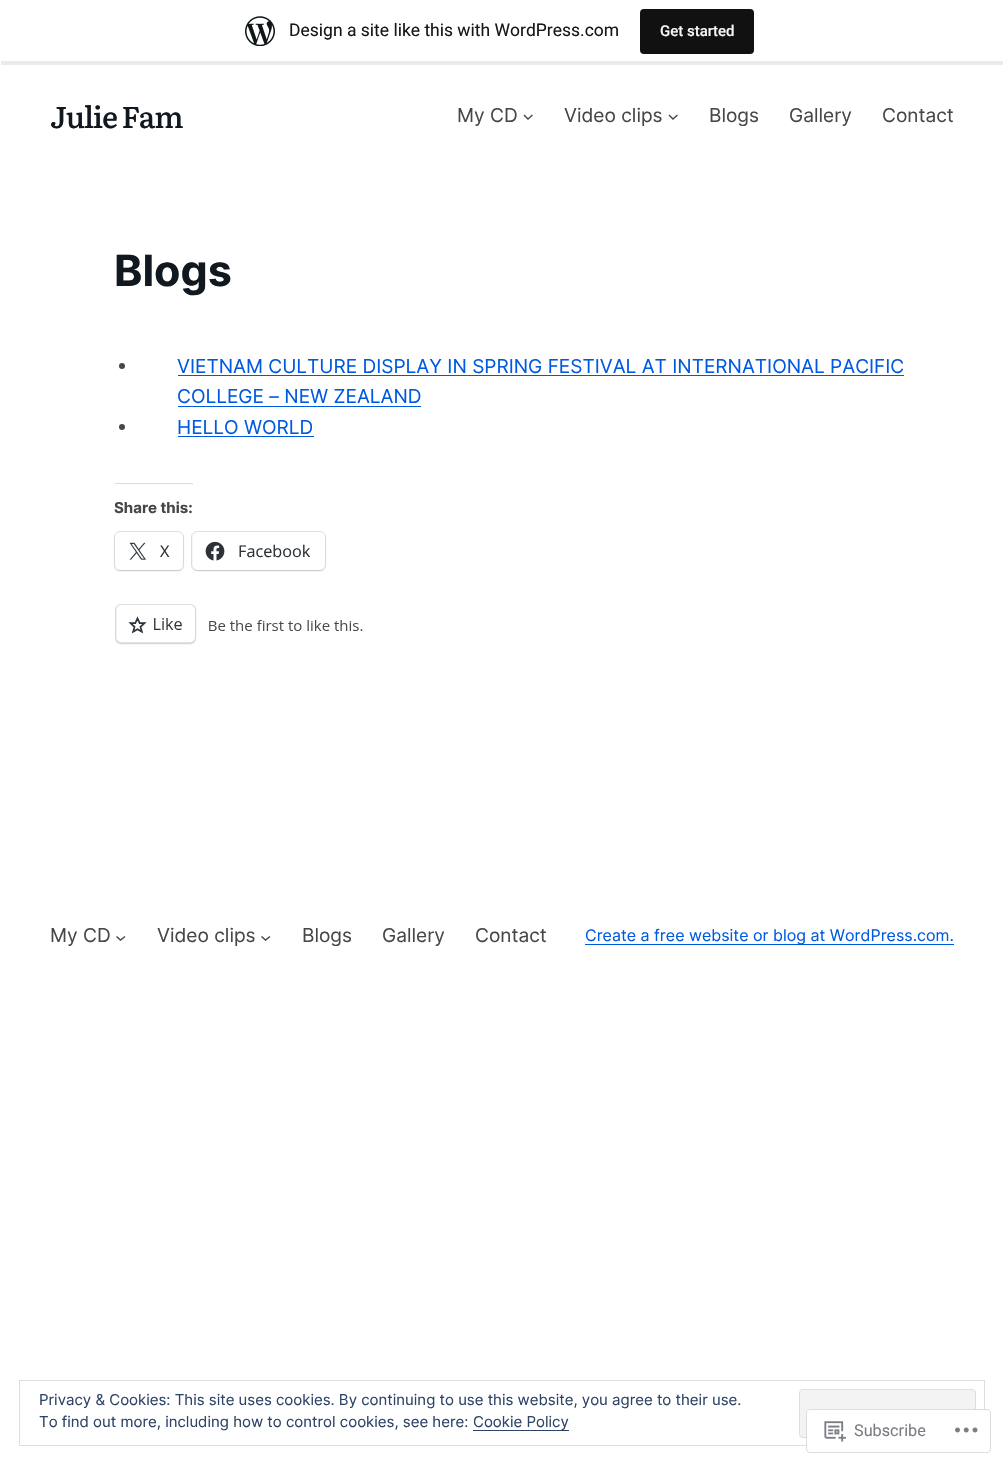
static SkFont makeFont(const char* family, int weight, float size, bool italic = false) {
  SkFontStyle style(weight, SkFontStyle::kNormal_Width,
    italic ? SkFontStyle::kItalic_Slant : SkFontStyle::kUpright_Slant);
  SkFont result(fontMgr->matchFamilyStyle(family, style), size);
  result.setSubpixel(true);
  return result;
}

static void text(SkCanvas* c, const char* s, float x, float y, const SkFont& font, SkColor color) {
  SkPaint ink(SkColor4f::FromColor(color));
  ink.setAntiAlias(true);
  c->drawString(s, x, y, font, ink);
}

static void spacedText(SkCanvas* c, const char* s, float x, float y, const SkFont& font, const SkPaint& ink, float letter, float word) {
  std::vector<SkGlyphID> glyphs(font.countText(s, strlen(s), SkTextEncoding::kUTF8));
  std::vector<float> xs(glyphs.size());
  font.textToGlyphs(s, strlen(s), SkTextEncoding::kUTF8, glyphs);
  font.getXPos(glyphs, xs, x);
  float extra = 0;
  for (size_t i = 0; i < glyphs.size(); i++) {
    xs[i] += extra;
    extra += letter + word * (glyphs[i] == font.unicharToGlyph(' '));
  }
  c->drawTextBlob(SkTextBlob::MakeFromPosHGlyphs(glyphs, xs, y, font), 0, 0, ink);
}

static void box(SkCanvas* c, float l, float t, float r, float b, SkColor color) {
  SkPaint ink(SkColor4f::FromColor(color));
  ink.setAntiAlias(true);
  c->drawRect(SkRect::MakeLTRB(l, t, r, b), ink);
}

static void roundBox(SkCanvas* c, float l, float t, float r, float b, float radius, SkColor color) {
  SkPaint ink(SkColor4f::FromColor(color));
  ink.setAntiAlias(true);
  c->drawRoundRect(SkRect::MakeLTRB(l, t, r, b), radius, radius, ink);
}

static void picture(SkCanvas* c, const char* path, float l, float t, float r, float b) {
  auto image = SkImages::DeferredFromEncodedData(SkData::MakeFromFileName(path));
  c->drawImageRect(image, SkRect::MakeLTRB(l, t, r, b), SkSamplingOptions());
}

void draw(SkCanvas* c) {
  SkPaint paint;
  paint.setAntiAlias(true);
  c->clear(0xffffffff);
  paint.setColor(0x14000000);
  c->drawPath(SkPathBuilder().moveTo(1, 61).lineTo(1, 65).lineTo(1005, 65).lineTo(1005, 4).lineTo(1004, 4).lineTo(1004, 61).close().detach(), paint);
  picture(c, "img_01.png", 245, 16, 275, 46);
  SkFont face1 = makeFont("Roboto", 400, 17.5f);
  text(c, "Design a site like this with WordPress.com", 289, 36, face1, 0xff171717);
  roundBox(c, 640, 9, 754, 54, 4, 0xff111111);
  SkFont face2 = makeFont("Roboto", 500, 15);
  text(c, "Get started", 660, 36, face2, 0xfff6f7f7);
  SkFont face3 = makeFont("Literata", 500, 30);
  paint.setColor(0xff11181f);
  spacedText(c, "Julie Fam", 50, 128, face3, paint, -1.25f, 0);
  SkFont face4 = makeFont("Inter", 400, 19.1f);
  text(c, "My CD", 457, 122, face4, 0xff474747);
  paint.setStyle(SkPaint::kStroke_Style);
  paint.setStrokeWidth(1.4f);
  paint.setColor(0xff474747);
  c->drawPath(SkPathBuilder().moveTo(524, 115).lineTo(528, 119).lineTo(532.5f, 115).detach(), paint);
  text(c, "Video clips", 564, 122, face4, 0xff474747);
  c->drawPath(SkPathBuilder().moveTo(669, 115).lineTo(673, 119).lineTo(677.5f, 115).detach(), paint);
  text(c, "Blogs", 709, 122, face4, 0xff474747);
  text(c, "Gallery", 789, 122, face4, 0xff474747);
  text(c, "Contact", 882, 122, face4, 0xff474747);
  SkFont face5 = makeFont("Inter", 700, 43);
  text(c, "Blogs", 114, 286, face5, 0xff11181f);
  paint.setStyle(SkPaint::kFill_Style);
  c->drawCircle(122, 366, 3, paint);
  text(c, "VIETNAM CULTURE DISPLAY IN SPRING FESTIVAL AT INTERNATIONAL PACIFIC", 177, 373, face4, 0xff005ae1);
  box(c, 178, 375, 904, 376, 0xff005ae1);
  text(c, "COLLEGE – NEW ZEALAND", 177, 403, face4, 0xff005ae1);
  box(c, 178, 406, 421, 407, 0xff005ae1);
  c->drawCircle(122, 427, 3, paint);
  text(c, "HELLO WORLD", 177, 434, face4, 0xff005ae1);
  box(c, 178, 436, 314, 437, 0xff005ae1);
  box(c, 115, 483, 193, 484, 0xffdcdcde);
  SkFont face6 = makeFont("Inter", 700, 15);
  text(c, "Share this:", 114, 513, face6, 0xff474747);
  paint.setStyle(SkPaint::kStroke_Style);
  paint.setStrokeWidth(1);
  paint.setColor(0xffe0e0e0);
  c->drawRoundRect(SkRect::MakeLTRB(114.5f, 531.5f, 183.5f, 570.5f), 5.5f, 5.5f, paint);
  paint.setStyle(SkPaint::kFill_Style);
  paint.setColor(0x1f000000);
  paint.setMaskFilter(SkMaskFilter::MakeBlur(kNormal_SkBlurStyle, 1));
  c->drawRoundRect(SkRect::MakeLTRB(115, 534, 183, 571), 5, 5, paint);
  paint.setMaskFilter(nullptr);
  roundBox(c, 115, 533, 183, 570, 5, 0xffffffff);
  picture(c, "img_02.png", 129, 542, 146, 560);
  SkFont face7 = makeFont("Open Sans", 400, 16.25f);
  text(c, "X", 160, 557, face7, 0xff2c3338);
  paint.setStyle(SkPaint::kStroke_Style);
  paint.setColor(0xffe0e0e0);
  c->drawRoundRect(SkRect::MakeLTRB(191.5f, 531.5f, 325.5f, 570.5f), 5.5f, 5.5f, paint);
  paint.setStyle(SkPaint::kFill_Style);
  paint.setColor(0x1f000000);
  paint.setMaskFilter(SkMaskFilter::MakeBlur(kNormal_SkBlurStyle, 1));
  c->drawRoundRect(SkRect::MakeLTRB(193, 534, 325, 571), 5, 5, paint);
  paint.setMaskFilter(nullptr);
  roundBox(c, 193, 533, 325, 570, 5, 0xffffffff);
  picture(c, "img_03.png", 205, 541, 225, 561);
  text(c, "Facebook", 238, 557, face7, 0xff2c3338);
  picture(c, "img_04.png", 115, 604, 363, 645);
  text(c, "My CD", 50, 942, face4, 0xff474747);
  paint.setStyle(SkPaint::kStroke_Style);
  paint.setStrokeWidth(1.4f);
  paint.setColor(0xff474747);
  c->drawPath(SkPathBuilder().moveTo(116.5f, 936.5f).lineTo(120.5f, 940).lineTo(125, 936.5f).detach(), paint);
  text(c, "Video clips", 157, 942, face4, 0xff474747);
  c->drawPath(SkPathBuilder().moveTo(261.5f, 936.5f).lineTo(265.5f, 940).lineTo(270, 936.5f).detach(), paint);
  text(c, "Blogs", 302, 942, face4, 0xff474747);
  text(c, "Gallery", 382, 942, face4, 0xff474747);
  text(c, "Contact", 475, 942, face4, 0xff474747);
  box(c, 585, 944, 954, 945, 0xff005ae1);
  SkFont face8 = makeFont("Inter", 400, 16);
  text(c, "Create a free website or blog at WordPress.com.", 585, 941, face8, 0xff005ae1);
  paint.setStrokeWidth(1);
  paint.setColor(0xffdedede);
  c->drawRect(SkRect::MakeLTRB(19.5f, 1380.5f, 984.5f, 1445.5f), paint);
  SkFont face9 = makeFont("Inter", 400, 15);
  text(c, "Privacy & Cookies: This site uses cookies. By continuing to use this website, you agree to their use.", 39, 1405, face9, 0xff2e4467);
  paint.setStyle(SkPaint::kFill_Style);
  paint.setColor(0xfff3f3f3);
  c->drawRoundRect(SkRect::MakeLTRB(799.5f, 1389.5f, 975.5f, 1437.5f), 3.5f, 3.5f, paint);
  paint.setStyle(SkPaint::kStroke_Style);
  paint.setColor(0xffdedede);
  c->drawRoundRect(SkRect::MakeLTRB(799.5f, 1389.5f, 975.5f, 1437.5f), 3.5f, 3.5f, paint);
  text(c, "To find out more, including how to control cookies, see here:", 39, 1427, face9, 0xff2e4467);
  box(c, 473, 1430, 569, 1431, 0xff2e4467);
  text(c, "Cookie Policy", 473, 1427, face9, 0xff2e4467);
  roundBox(c, 806, 1409, 991, 1453, 4, 0xfaffffff);
  paint.setColor(0xfadcdcde);
  c->drawRoundRect(SkRect::MakeLTRB(806.5f, 1409.5f, 990.5f, 1452.5f), 3.5f, 3.5f, paint);
  picture(c, "img_05.png", 824, 1421, 846, 1442);
  SkFont face10 = makeFont("Roboto", 400, 16.25f);
  text(c, "Subscribe", 854, 1436, face10, 0xff7a7e84);
  picture(c, "img_06.png", 955, 1427, 978, 1433);
}
